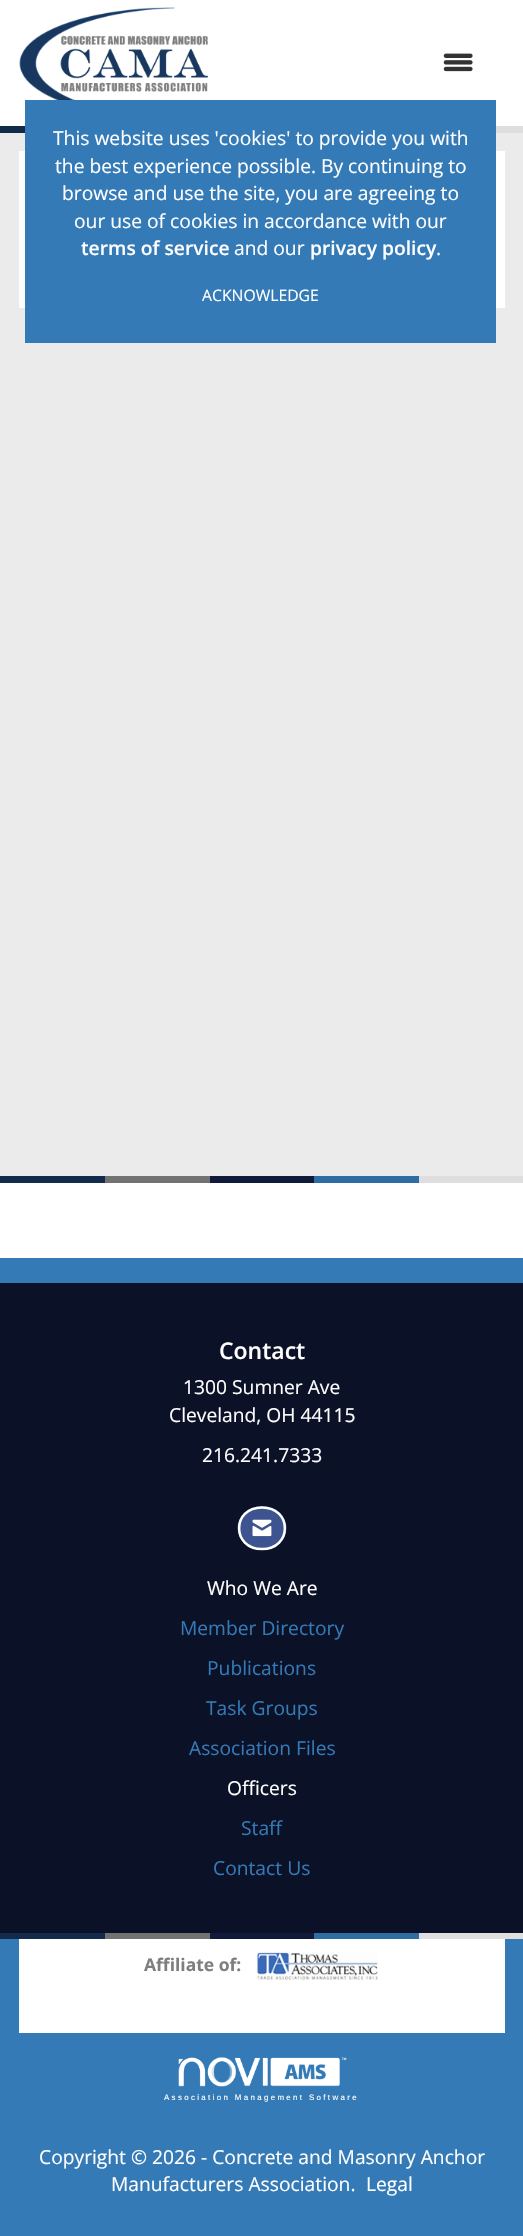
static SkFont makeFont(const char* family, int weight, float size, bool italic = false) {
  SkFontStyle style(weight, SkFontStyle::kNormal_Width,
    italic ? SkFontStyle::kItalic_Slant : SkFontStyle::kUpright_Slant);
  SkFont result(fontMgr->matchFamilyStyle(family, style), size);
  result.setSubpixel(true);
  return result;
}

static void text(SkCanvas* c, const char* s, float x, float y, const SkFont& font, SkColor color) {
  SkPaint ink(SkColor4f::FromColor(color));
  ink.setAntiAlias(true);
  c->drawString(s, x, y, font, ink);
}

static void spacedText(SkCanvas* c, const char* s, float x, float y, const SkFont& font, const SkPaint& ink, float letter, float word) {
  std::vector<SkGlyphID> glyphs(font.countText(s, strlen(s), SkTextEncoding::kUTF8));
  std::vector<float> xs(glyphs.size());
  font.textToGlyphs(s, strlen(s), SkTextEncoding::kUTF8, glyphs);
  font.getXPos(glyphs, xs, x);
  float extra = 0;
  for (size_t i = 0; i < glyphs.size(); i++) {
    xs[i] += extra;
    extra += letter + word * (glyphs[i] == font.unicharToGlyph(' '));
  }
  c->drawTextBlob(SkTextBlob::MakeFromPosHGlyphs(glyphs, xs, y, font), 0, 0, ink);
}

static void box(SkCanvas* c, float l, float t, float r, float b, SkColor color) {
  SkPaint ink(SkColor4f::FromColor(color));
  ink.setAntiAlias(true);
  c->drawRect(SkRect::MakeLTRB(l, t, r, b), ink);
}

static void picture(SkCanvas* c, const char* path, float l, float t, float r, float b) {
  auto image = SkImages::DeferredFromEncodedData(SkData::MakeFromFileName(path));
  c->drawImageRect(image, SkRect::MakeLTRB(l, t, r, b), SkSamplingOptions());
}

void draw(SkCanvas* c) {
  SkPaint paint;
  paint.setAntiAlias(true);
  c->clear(0xffebebeb);
  box(c, 0, 0, 523, 126, 0xffffffff);
  picture(c, "img_01.png", 19, 7, 208, 100);
  picture(c, "img_02.png", 443, 53, 473, 72);
  box(c, 0, 126, 25, 133, 0xff122b4a);
  box(c, 496, 126, 523, 133, 0xffdedede);
  box(c, 19, 151, 505, 308, 0xffffffff);
  box(c, 25, 100, 496, 343, 0xff347ab7);
  SkFont face1 = makeFont("Open Sans", 400, 19.25f);
  text(c, "This website uses 'cookies' to provide you with", 53, 145, face1, 0xffffffff);
  text(c, "the best experience possible. By continuing to", 55, 173, face1, 0xffffffff);
  text(c, "browse and use the site, you are agreeing to", 62, 200, face1, 0xffffffff);
  text(c, "our use of cookies in accordance with our", 74, 228, face1, 0xffffffff);
  SkFont face2 = makeFont("Open Sans", 600, 19.25f);
  text(c, "terms of service", 81, 255, face2, 0xffffffff);
  text(c, "and our", 234, 255, face1, 0xffffffff);
  text(c, "privacy policy", 310, 255, face2, 0xffffffff);
  text(c, ".", 436, 255, face1, 0xffffffff);
  SkFont face3 = makeFont("Open Sans", 400, 15.75f);
  text(c, "ACKNOWLEDGE", 202, 301, face3, 0xffffffff);
  box(c, 0, 1176, 105, 1183, 0xff122b4a);
  box(c, 105, 1176, 210, 1183, 0xff727272);
  box(c, 210, 1176, 314, 1183, 0xff111a3a);
  box(c, 314, 1176, 419, 1183, 0xff2e6da3);
  box(c, 419, 1176, 523, 1183, 0xffdedede);
  box(c, 0, 1183, 523, 1258, 0xffffffff);
  box(c, 0, 1258, 523, 1283, 0xff347ab7);
  box(c, 0, 1283, 523, 1933, 0xff0b1126);
  SkFont face4 = makeFont("Open Sans", 600, 23);
  text(c, "Contact", 219, 1359, face4, 0xffffffff);
  text(c, "1300 Sumner Ave", 183, 1394, face1, 0xffffffff);
  text(c, "Cleveland, OH 44115", 169, 1422, face1, 0xffffffff);
  text(c, "216.241.7333", 202, 1462, face1, 0xffffffff);
  paint.setColor(0xff3e5491);
  c->drawOval(SkRect::MakeLTRB(237.5f, 1506, 286.5f, 1550), paint);
  paint.setStyle(SkPaint::kStroke_Style);
  paint.setStrokeWidth(2.5f);
  paint.setColor(0xffffffff);
  c->drawPath(SkPathBuilder().moveTo(262, 1507.5f).cubicTo(292.5f, 1507.5f, 292.5f, 1549, 262, 1549).cubicTo(231.5f, 1549, 231.5f, 1507.5f, 262, 1507.5f).close().detach(), paint);
  picture(c, "img_03.png", 252, 1519, 272, 1537);
  text(c, "Who We Are", 207, 1595, face1, 0xffffffff);
  text(c, "Member Directory", 180, 1635, face1, 0xff347ab7);
  text(c, "Publications", 207, 1675, face1, 0xff347ab7);
  text(c, "Task Groups", 206, 1715, face1, 0xff347ab7);
  text(c, "Association Files", 189, 1755, face1, 0xff347ab7);
  text(c, "Officers", 227, 1795, face1, 0xffffffff);
  text(c, "Staff", 241, 1835, face1, 0xff347ab7);
  text(c, "Contact Us", 213, 1875, face1, 0xff347ab7);
  box(c, 0, 1933, 105, 1939, 0xff122b4a);
  box(c, 105, 1933, 210, 1939, 0xff727272);
  box(c, 210, 1933, 314, 1939, 0xff111a3a);
  box(c, 314, 1933, 419, 1939, 0xff2e6da3);
  box(c, 419, 1933, 523, 1939, 0xffdedede);
  box(c, 0, 1939, 523, 2236, 0xff347ab7);
  box(c, 19, 1939, 505, 2033, 0xffffffff);
  SkFont face5 = makeFont("Open Sans", 700, 17.5f);
  text(c, "Affiliate of:", 144, 1971, face5, 0xff7f7f7f);
  picture(c, "img_04.png", 256, 1952, 378, 1980);
  picture(c, "img_05.png", 178, 2057, 347, 2087);
  SkFont face6 = makeFont("Liberation Sans", 400, 7.9f);
  paint.setStyle(SkPaint::kFill_Style);
  spacedText(c, "Association Management Software", 164, 2100, face6, paint, 2.35f, 0);
  text(c, "Copyright © 2026 - Concrete and Masonry Anchor", 39, 2164, face1, 0xffffffff);
  text(c, "Manufacturers Association.", 111, 2191, face1, 0xffffffff);
  text(c, "Legal", 366, 2191, face1, 0xffffffff);
}
